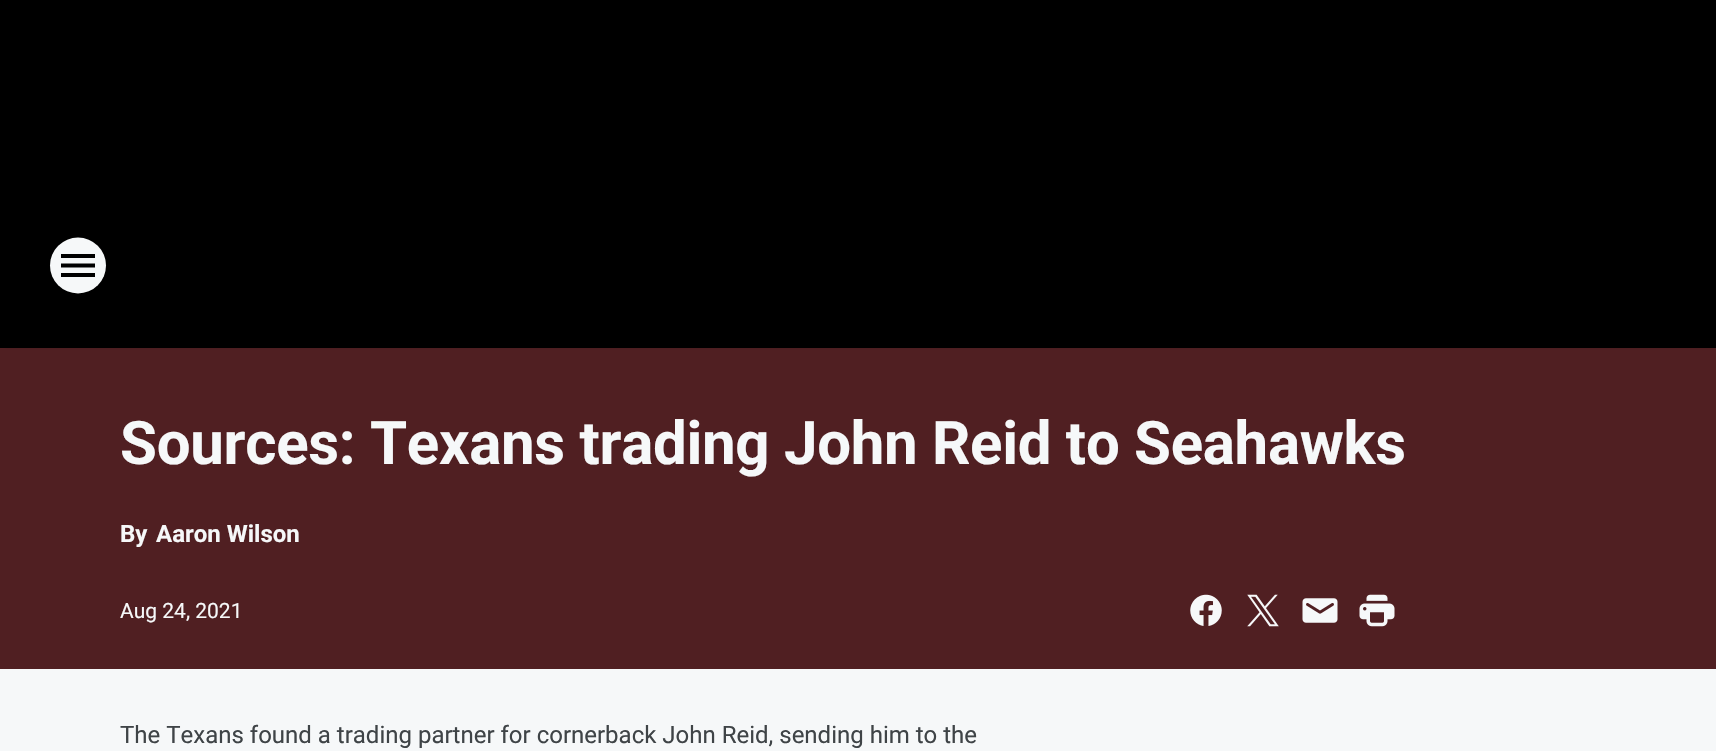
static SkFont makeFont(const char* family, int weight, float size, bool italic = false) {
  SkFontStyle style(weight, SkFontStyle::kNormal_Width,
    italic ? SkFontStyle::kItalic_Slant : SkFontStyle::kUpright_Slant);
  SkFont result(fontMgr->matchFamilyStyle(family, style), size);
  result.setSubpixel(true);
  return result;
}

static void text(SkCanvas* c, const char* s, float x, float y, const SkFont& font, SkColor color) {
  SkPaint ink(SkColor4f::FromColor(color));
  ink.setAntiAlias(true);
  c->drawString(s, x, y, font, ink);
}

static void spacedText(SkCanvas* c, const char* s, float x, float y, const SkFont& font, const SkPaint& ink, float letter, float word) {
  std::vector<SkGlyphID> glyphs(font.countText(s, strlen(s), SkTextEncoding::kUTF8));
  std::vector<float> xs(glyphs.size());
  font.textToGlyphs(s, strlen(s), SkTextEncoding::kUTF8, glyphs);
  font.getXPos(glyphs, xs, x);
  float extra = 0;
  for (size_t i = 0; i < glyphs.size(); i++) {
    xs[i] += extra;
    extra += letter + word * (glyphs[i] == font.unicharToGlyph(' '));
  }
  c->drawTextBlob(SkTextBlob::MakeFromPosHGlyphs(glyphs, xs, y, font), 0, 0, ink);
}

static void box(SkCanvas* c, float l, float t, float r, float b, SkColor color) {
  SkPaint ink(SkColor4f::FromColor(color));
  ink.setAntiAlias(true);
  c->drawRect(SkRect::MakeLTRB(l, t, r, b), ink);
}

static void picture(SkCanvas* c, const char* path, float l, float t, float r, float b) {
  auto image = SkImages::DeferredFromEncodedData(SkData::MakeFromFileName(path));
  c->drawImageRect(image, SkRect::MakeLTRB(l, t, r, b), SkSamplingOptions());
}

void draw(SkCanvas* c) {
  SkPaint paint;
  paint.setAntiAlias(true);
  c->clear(0xfff6f8f9);
  box(c, 0, 0, 1716, 183, 0xff000000);
  box(c, 0, 348, 1716, 669, 0xff501f22);
  paint.setColor(0xff000000);
  paint.setMaskFilter(SkMaskFilter::MakeBlur(kNormal_SkBlurStyle, 2));
  c->drawRect(SkRect::MakeLTRB(5, 189, 1712, 345), paint);
  paint.setMaskFilter(nullptr);
  box(c, 0, 183, 1716, 348, 0xff000000);
  paint.setColor(0xfff6f8f9);
  c->drawCircle(78, 265.5f, 28, paint);
  paint.setColor(0xff000000);
  c->drawPath(SkPathBuilder(SkPathFillType::kEvenOdd).moveTo(61, 277).lineTo(95, 277).lineTo(95, 273).lineTo(61, 273).close().moveTo(61, 267.5f).lineTo(95, 267.5f).lineTo(95, 263.5f).lineTo(61, 263.5f).close().moveTo(61, 254).lineTo(61, 258).lineTo(95, 258).lineTo(95, 254).close().detach(), paint);
  SkFont face1 = makeFont("Roboto", 700, 60);
  paint.setColor(0xfff6f8f9);
  spacedText(c, "Sources: Texans trading John Reid to Seahawks", 120, 464, face1, paint, -0.3f, 0);
  SkFont face2 = makeFont("Roboto", 700, 24);
  text(c, "By", 120, 542, face2, 0xfff6f8f9);
  text(c, "Aaron Wilson", 156, 542, face2, 0xfff6f8f9);
  SkFont face3 = makeFont("Roboto", 400, 21);
  text(c, "Aug 24, 2021", 120, 618, face3, 0xfff6f8f9);
  picture(c, "img_01.png", 1190, 594, 1222, 626);
  picture(c, "img_02.png", 1247, 594, 1279, 627);
  picture(c, "img_03.png", 1302, 598, 1338, 623);
  picture(c, "img_04.png", 1359, 594, 1395, 627);
  SkFont face4 = makeFont("Roboto", 400, 24);
  text(c, "The Texans found a trading partner for cornerback John Reid, sending him to the", 120, 743, face4, 0xff3f4447);
}
